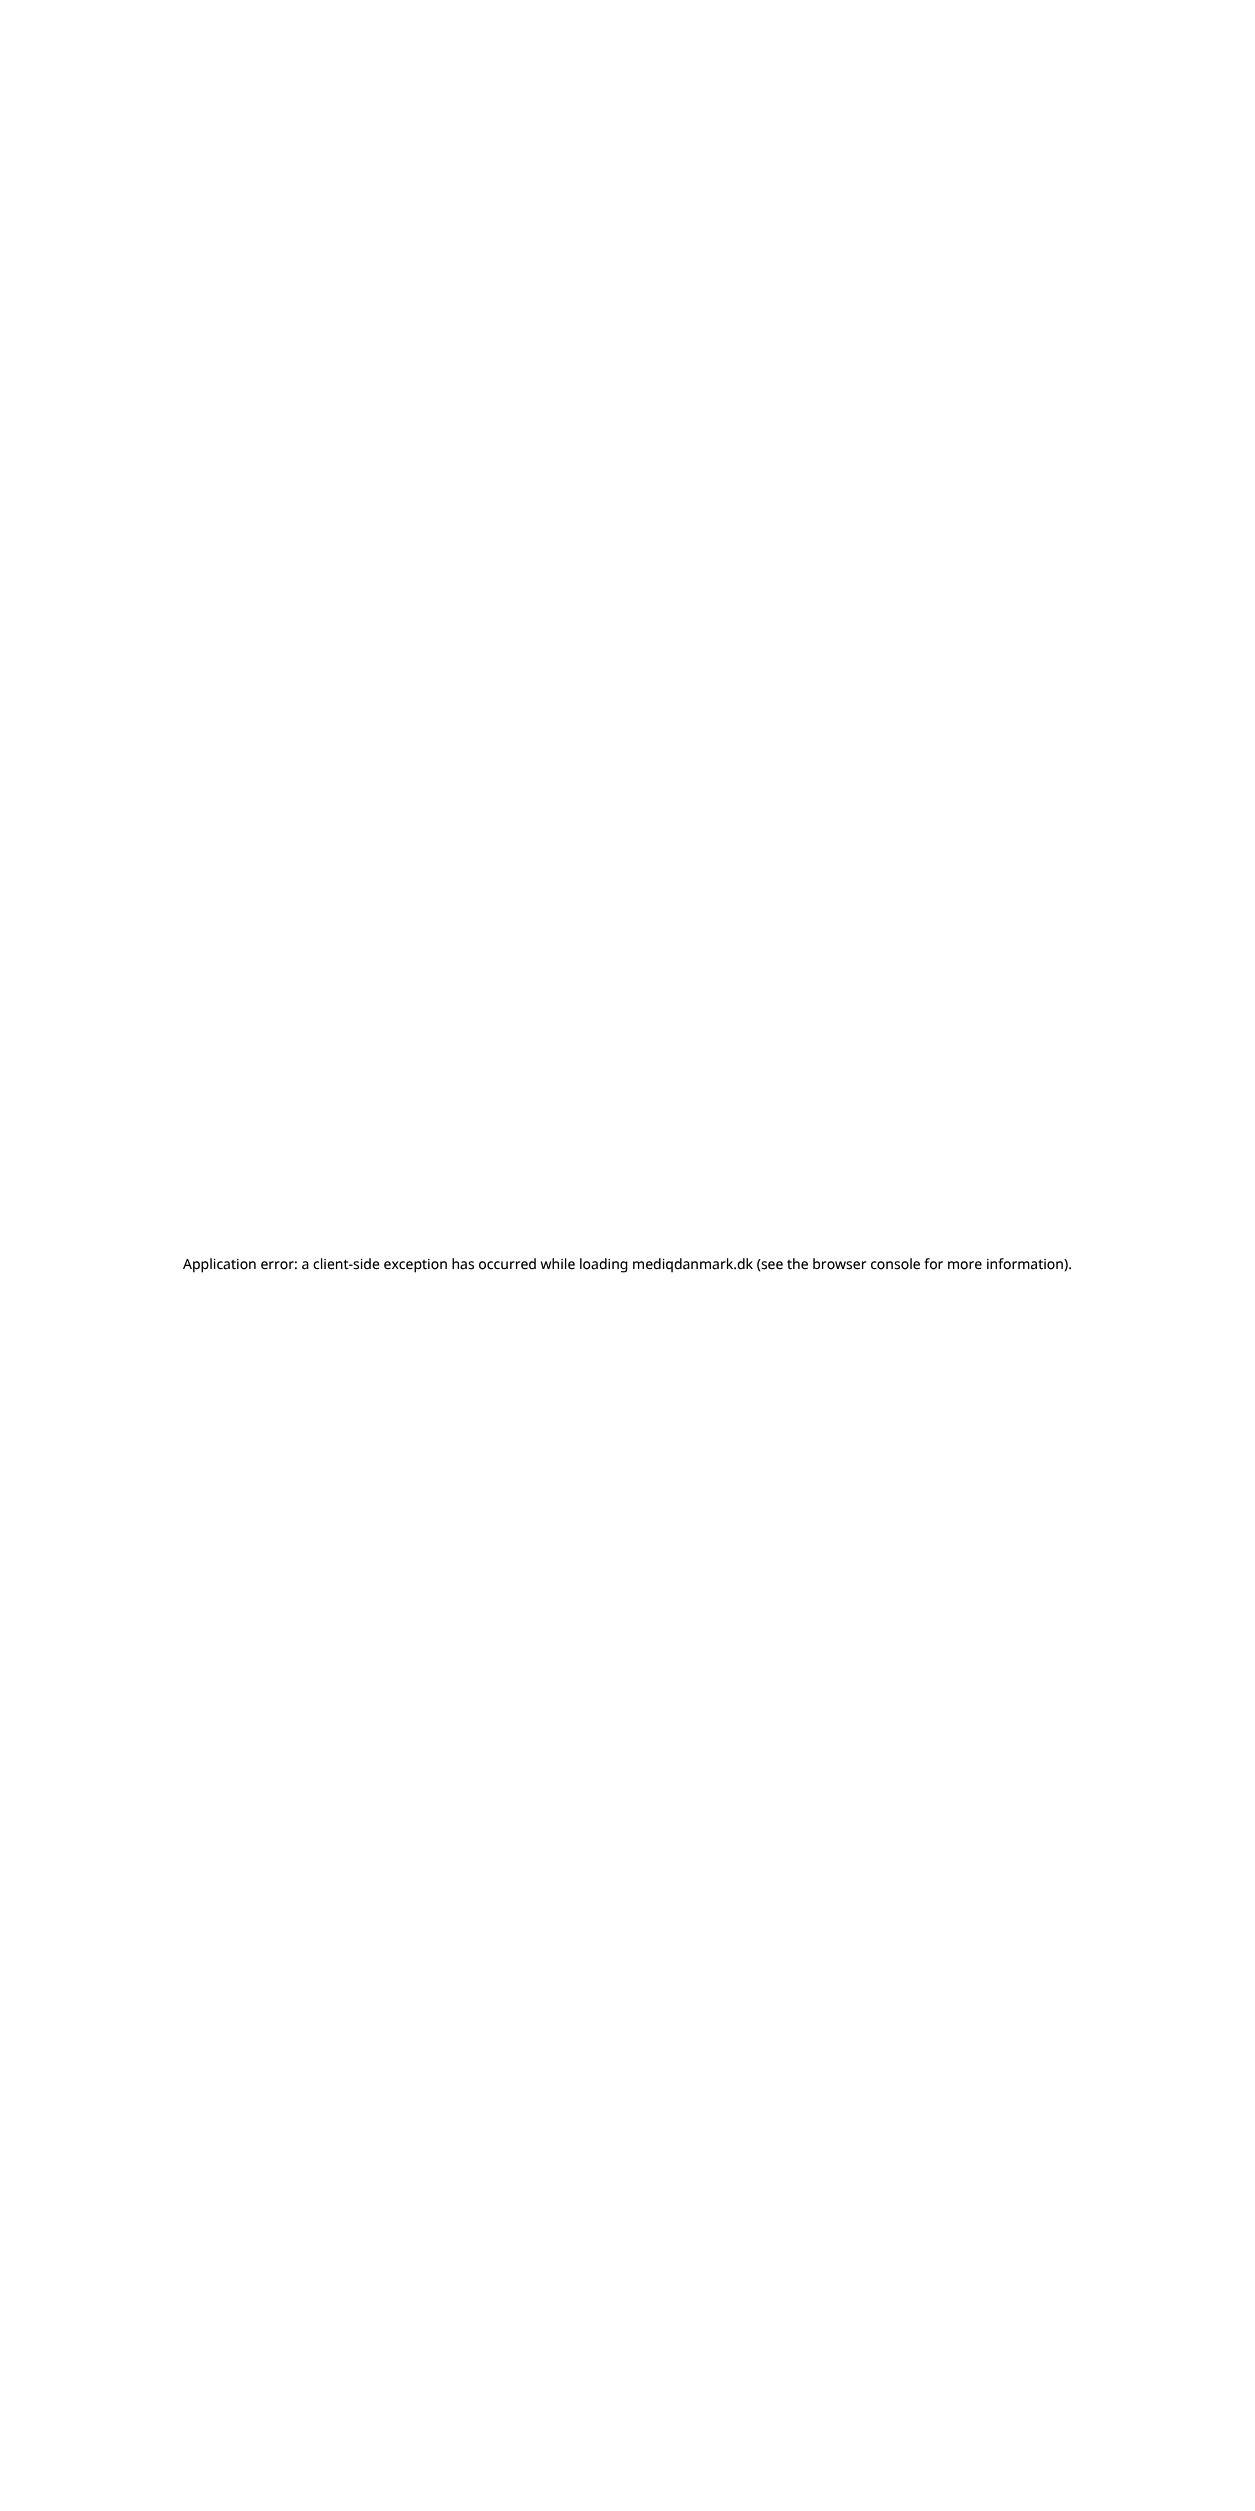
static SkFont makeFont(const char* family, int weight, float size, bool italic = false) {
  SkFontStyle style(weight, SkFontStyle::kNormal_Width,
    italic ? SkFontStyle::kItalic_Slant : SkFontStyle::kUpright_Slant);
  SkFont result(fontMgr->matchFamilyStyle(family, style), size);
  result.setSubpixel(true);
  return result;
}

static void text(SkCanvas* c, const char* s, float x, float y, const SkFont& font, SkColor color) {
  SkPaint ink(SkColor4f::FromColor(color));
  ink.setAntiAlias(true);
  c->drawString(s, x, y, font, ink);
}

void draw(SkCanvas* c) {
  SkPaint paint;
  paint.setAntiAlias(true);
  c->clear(0xffffffff);
  SkFont face1 = makeFont("Noto Sans", 400, 14);
  text(c, "Application error: a client-side exception has occurred while loading mediqdanmark.dk (see the browser console for more information).", 183, 1269, face1, 0xff000000);
}
